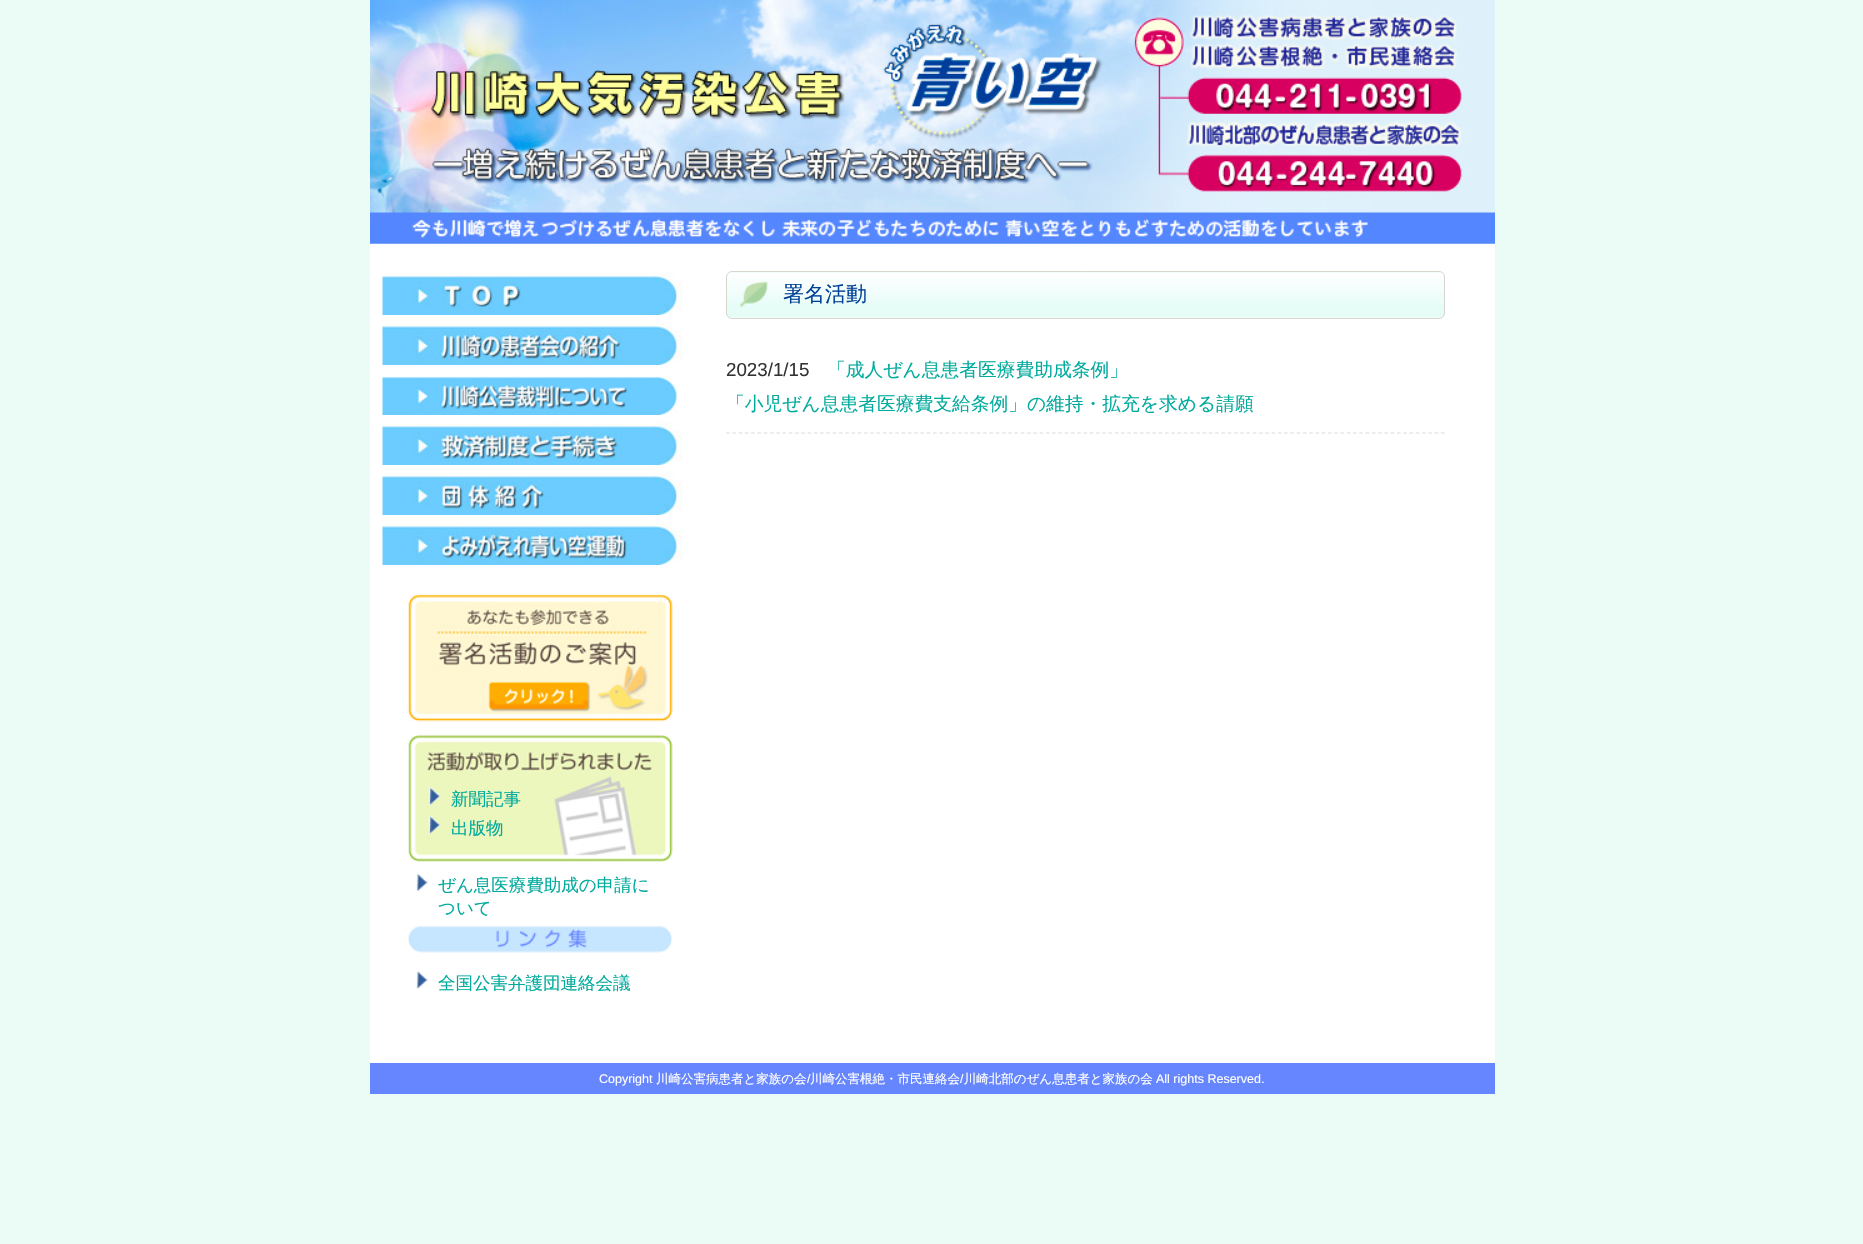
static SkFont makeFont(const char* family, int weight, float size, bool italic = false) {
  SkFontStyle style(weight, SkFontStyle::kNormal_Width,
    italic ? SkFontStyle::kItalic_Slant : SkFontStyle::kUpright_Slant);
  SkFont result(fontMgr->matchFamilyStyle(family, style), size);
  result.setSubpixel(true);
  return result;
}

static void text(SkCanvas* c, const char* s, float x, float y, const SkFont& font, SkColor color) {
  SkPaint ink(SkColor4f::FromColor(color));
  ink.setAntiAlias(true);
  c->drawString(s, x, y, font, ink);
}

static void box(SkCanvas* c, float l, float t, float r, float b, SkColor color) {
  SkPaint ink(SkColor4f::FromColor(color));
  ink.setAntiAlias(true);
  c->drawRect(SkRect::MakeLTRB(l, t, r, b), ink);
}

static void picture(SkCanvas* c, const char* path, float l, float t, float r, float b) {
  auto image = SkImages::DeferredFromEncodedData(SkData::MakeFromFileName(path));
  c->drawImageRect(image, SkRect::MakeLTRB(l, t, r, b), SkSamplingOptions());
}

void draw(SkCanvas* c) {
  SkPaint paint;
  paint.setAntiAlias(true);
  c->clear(0xffebfcf7);
  picture(c, "img_01.png", 370, 0, 1495, 244);
  box(c, 370, 244, 1495, 1063, 0xffffffff);
  picture(c, "img_02.png", 726, 271, 1445, 318);
  paint.setStyle(SkPaint::kStroke_Style);
  paint.setStrokeWidth(1);
  paint.setColor(0xffd6d6cc);
  c->drawRoundRect(SkRect::MakeLTRB(726.5f, 271.5f, 1444.5f, 318.5f), 5.5f, 5.5f, paint);
  SkFont face1 = makeFont("WenQuanYi Zen Hei", 500, 21);
  text(c, "署名活動", 783, 301, face1, 0xff004098);
  paint.setStrokeWidth(1.2f);
  paint.setColor(0xffdcdcdc);
  paint.setPathEffect(SkDashPathEffect::Make({{3.75f, 2.52f}}, 0));
  c->drawPath(SkPathBuilder().moveTo(726, 433).lineTo(1445, 433).detach(), paint);
  paint.setPathEffect(nullptr);
  SkFont face2 = makeFont("Liberation Sans", 400, 18.75f);
  text(c, "2023/1/15", 726, 376, face2, 0xff333333);
  SkFont face3 = makeFont("WenQuanYi Zen Hei", 500, 18.75f);
  text(c, "「成人ぜん息患者医療費助成条例」", 827, 376, face3, 0xff00aa9d);
  text(c, "「小児ぜん息患者医療費支給条例」の維持・拡充を求める請願", 726, 410, face3, 0xff00aa9d);
  picture(c, "img_03.png", 382, 271, 683, 315);
  picture(c, "img_04.png", 382, 321, 683, 365);
  picture(c, "img_05.png", 382, 376, 678, 415);
  picture(c, "img_06.png", 382, 421, 683, 465);
  picture(c, "img_07.png", 382, 471, 683, 515);
  picture(c, "img_08.png", 382, 521, 683, 565);
  picture(c, "img_09.png", 408, 594, 673, 722);
  picture(c, "img_10.png", 483, 680, 595, 714);
  picture(c, "img_11.png", 408, 734, 673, 862);
  picture(c, "img_12.png", 428, 787, 441, 805);
  SkFont face4 = makeFont("WenQuanYi Zen Hei", 500, 17.5f);
  text(c, "新聞記事", 451, 805, face4, 0xff00aa9d);
  picture(c, "img_13.png", 428, 816, 441, 834);
  text(c, "出版物", 451, 834, face4, 0xff00aa9d);
  picture(c, "img_14.png", 416, 873, 428, 892);
  text(c, "ぜん息医療費助成の申請に", 438, 891, face4, 0xff00aa9d);
  text(c, "ついて", 438, 914, face4, 0xff00aa9d);
  picture(c, "img_15.png", 408, 926, 672, 953);
  picture(c, "img_16.png", 416, 971, 428, 989);
  text(c, "全国公害弁護団連絡会議", 438, 989, face4, 0xff00aa9d);
  box(c, 370, 1063, 1495, 1094, 0xff6686ff);
  SkFont face5 = makeFont("Liberation Sans", 400, 12.5f);
  text(c, "Copyright", 599, 1083, face5, 0xffffffff);
  SkFont face6 = makeFont("WenQuanYi Zen Hei", 500, 12.5f);
  text(c, "川崎公害病患者と家族の会", 656, 1083, face6, 0xffffffff);
  text(c, "/", 807, 1083, face5, 0xffffffff);
  text(c, "川崎公害根絶・市民連絡会 川崎北部のぜん息患者と家族の会", 810, 1083, face6, 0xffffffff);
  text(c, "/", 960, 1083, face5, 0xffffffff);
  text(c, "All rights Reserved.", 1156, 1083, face5, 0xffffffff);
}
